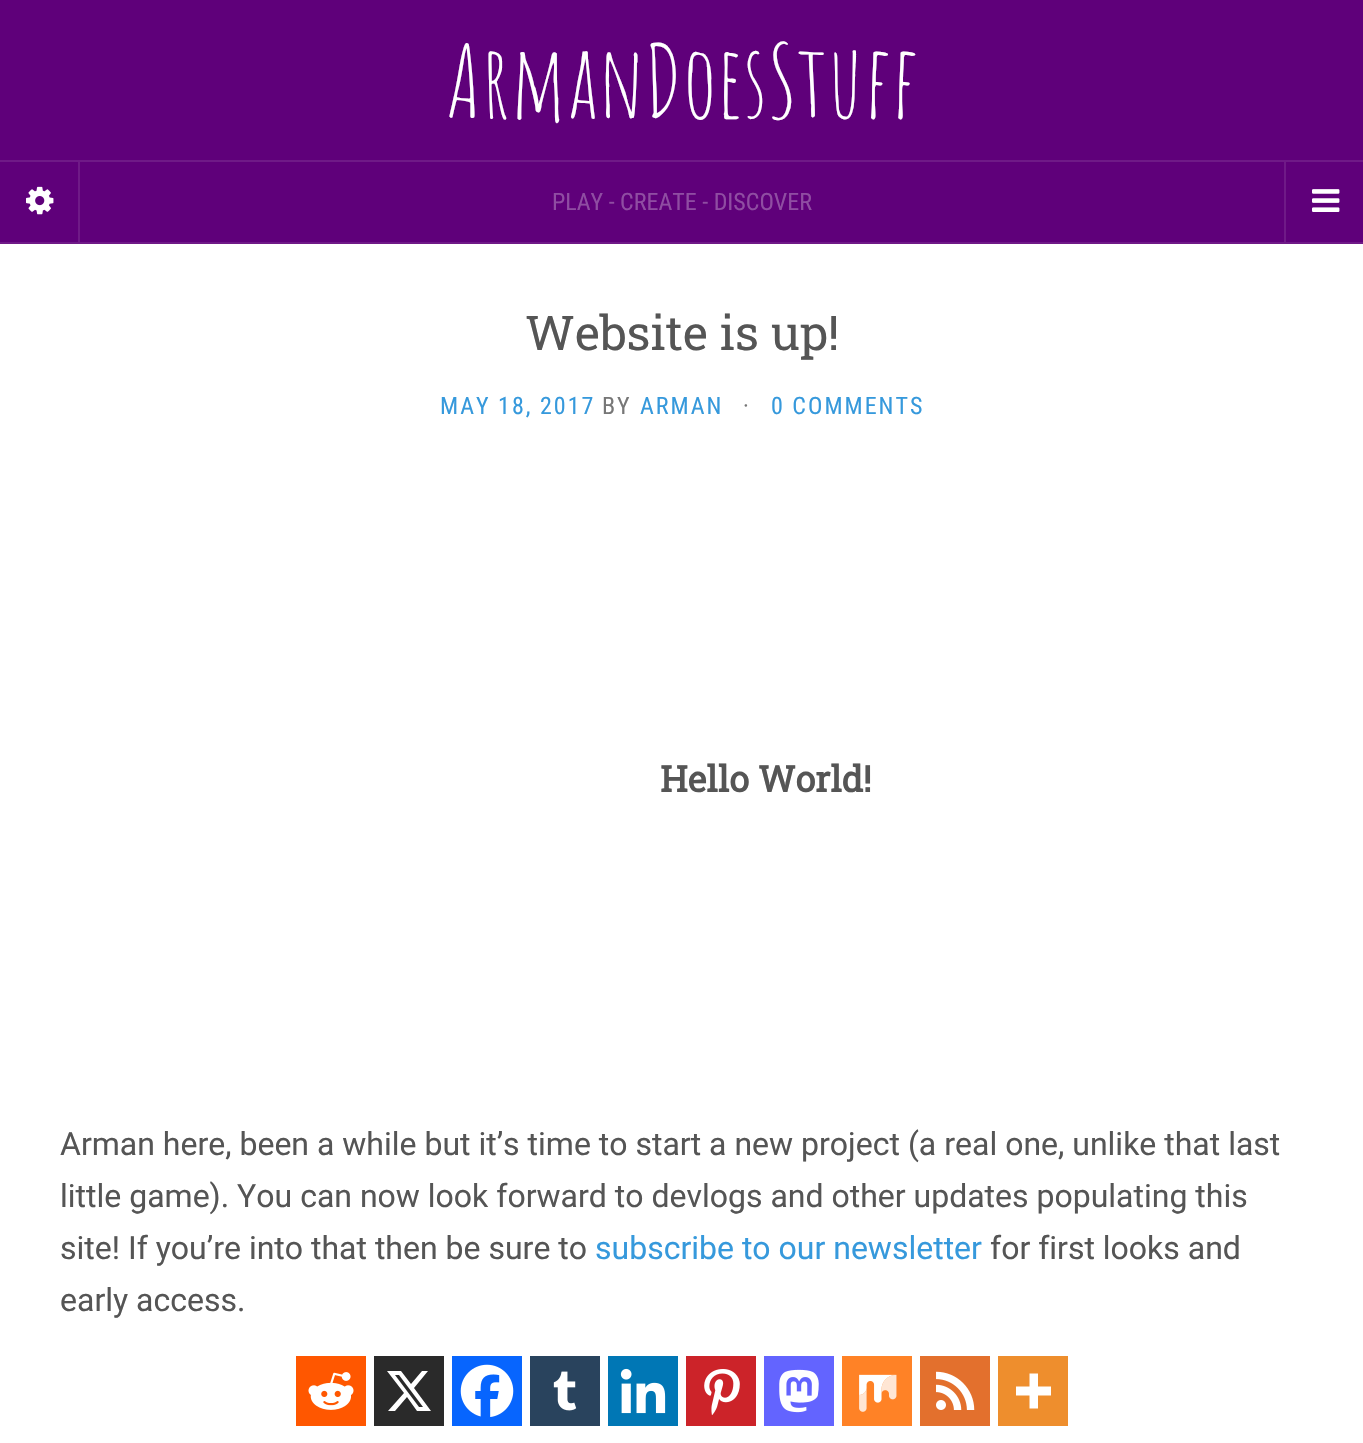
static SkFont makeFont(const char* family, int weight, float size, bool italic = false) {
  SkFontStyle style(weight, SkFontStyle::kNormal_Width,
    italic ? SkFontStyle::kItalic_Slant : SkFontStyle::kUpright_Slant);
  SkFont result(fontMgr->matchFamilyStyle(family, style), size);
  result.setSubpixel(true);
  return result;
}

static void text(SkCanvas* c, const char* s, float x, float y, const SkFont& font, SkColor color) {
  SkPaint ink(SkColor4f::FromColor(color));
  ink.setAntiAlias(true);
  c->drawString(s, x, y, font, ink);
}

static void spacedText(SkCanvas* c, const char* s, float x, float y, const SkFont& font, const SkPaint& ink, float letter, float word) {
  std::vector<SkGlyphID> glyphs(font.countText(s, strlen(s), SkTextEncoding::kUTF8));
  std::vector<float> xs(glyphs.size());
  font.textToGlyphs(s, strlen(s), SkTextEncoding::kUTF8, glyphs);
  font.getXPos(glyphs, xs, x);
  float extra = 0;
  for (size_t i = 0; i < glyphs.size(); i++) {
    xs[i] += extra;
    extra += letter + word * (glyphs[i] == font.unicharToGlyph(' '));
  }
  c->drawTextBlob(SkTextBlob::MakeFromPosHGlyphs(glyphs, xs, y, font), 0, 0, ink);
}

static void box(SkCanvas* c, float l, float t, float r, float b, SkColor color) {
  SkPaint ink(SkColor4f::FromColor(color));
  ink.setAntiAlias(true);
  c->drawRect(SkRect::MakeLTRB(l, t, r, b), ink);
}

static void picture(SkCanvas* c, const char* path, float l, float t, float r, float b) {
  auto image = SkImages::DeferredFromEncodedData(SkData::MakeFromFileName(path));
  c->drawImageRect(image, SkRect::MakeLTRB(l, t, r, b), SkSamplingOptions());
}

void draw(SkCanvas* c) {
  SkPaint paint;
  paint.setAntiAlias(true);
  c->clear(0xff5f007a);
  box(c, 78, 162, 80, 242, 0xff6f1a87);
  picture(c, "img_01.png", 26, 186, 54, 215);
  box(c, 0, 242, 1363, 244, 0xff6f1a87);
  box(c, 0, 160, 1363, 162, 0xff6f1a87);
  SkFont face1 = makeFont("Amatic SC", 400, 100);
  text(c, "ArmanDoesStuff", 446, 118, face1, 0xffffffff);
  SkFont face2 = makeFont("Roboto Condensed", 400, 24);
  text(c, "PLAY - CREATE - DISCOVER", 552, 210, face2, 0xff8f4da2);
  box(c, 1284, 162, 1286, 242, 0xff6f1a87);
  picture(c, "img_02.png", 1312, 189, 1340, 212);
  box(c, 0, 244, 1363, 1443, 0xffffffff);
  SkFont face3 = makeFont("Roboto Slab", 400, 48);
  text(c, "Website is up!", 525, 350, face3, 0xff555555);
  paint.setColor(0xff3699dc);
  spacedText(c, "MAY 18, 2017", 440, 414, face2, paint, 2, 0);
  paint.setColor(0xff777777);
  spacedText(c, "BY", 602, 414, face2, paint, 2, 0);
  paint.setColor(0xff3699dc);
  spacedText(c, "ARMAN", 640, 414, face2, paint, 2, 0);
  paint.setColor(0xff777777);
  spacedText(c, "·", 743, 414, face2, paint, 2, 0);
  paint.setColor(0xff3699dc);
  spacedText(c, "0 COMMENTS", 771, 414, face2, paint, 2, 0);
  SkFont face4 = makeFont("Roboto Slab", 700, 36);
  text(c, "Hello World!", 660, 792, face4, 0xff555555);
  SkFont face5 = makeFont("Roboto", 400, 32);
  text(c, "Arman here, been a while but it’s time to start a new project (a real one, unlike that last", 60, 1155, face5, 0xff555555);
  text(c, "little game). You can now look forward to devlogs and other updates populating this", 60, 1207, face5, 0xff555555);
  text(c, "site! If you’re into that then be sure to", 60, 1259, face5, 0xff555555);
  text(c, "subscribe to our newsletter", 595, 1259, face5, 0xff3699dc);
  text(c, "for first looks and", 990, 1259, face5, 0xff555555);
  text(c, "early access.", 60, 1311, face5, 0xff555555);
  box(c, 296, 1356, 366, 1426, 0xffff5700);
  picture(c, "img_03.png", 308, 1372, 354, 1410);
  box(c, 374, 1356, 444, 1426, 0xff2a2a2a);
  paint.setColor(0xffffffff);
  c->drawPath(SkPathBuilder().moveTo(422, 1371).lineTo(428, 1371).lineTo(414, 1388).lineTo(431, 1411).lineTo(417, 1411).lineTo(407, 1397).lineTo(395, 1411).lineTo(388, 1411).lineTo(404, 1393).lineTo(387, 1371).lineTo(401, 1371).lineTo(411, 1384).close().moveTo(419, 1407).lineTo(423, 1407).lineTo(399, 1375).lineTo(395, 1375).close().detach(), paint);
  box(c, 452, 1356, 522, 1426, 0xff0765fe);
  picture(c, "img_04.png", 460, 1364, 514, 1417);
  box(c, 530, 1356, 600, 1426, 0xff29435d);
  picture(c, "img_05.png", 553, 1371, 577, 1411);
  box(c, 608, 1356, 678, 1426, 0xff0077b5);
  picture(c, "img_06.png", 620, 1368, 666, 1414);
  box(c, 686, 1356, 756, 1426, 0xffcc2329);
  picture(c, "img_07.png", 704, 1369, 740, 1415);
  box(c, 764, 1356, 834, 1426, 0xff6364ff);
  picture(c, "img_08.png", 779, 1369, 819, 1413);
  box(c, 842, 1356, 912, 1426, 0xffff8226);
  picture(c, "img_09.png", 859, 1374, 897, 1412);
  box(c, 920, 1356, 990, 1426, 0xffe3702d);
  picture(c, "img_10.png", 936, 1371, 975, 1410);
  box(c, 998, 1356, 1068, 1426, 0xffee8e2d);
  c->drawPath(SkPathBuilder(SkPathFillType::kEvenOdd).moveTo(1038, 1386.5f).lineTo(1038, 1373.5f).lineTo(1029.5f, 1373.5f).lineTo(1029.5f, 1386.5f).lineTo(1016, 1386.5f).lineTo(1016, 1395.5f).lineTo(1029.5f, 1395.5f).lineTo(1029.5f, 1408.5f).lineTo(1038, 1408.5f).lineTo(1038, 1395.5f).lineTo(1051, 1395.5f).lineTo(1051, 1386.5f).close().detach(), paint);
}
